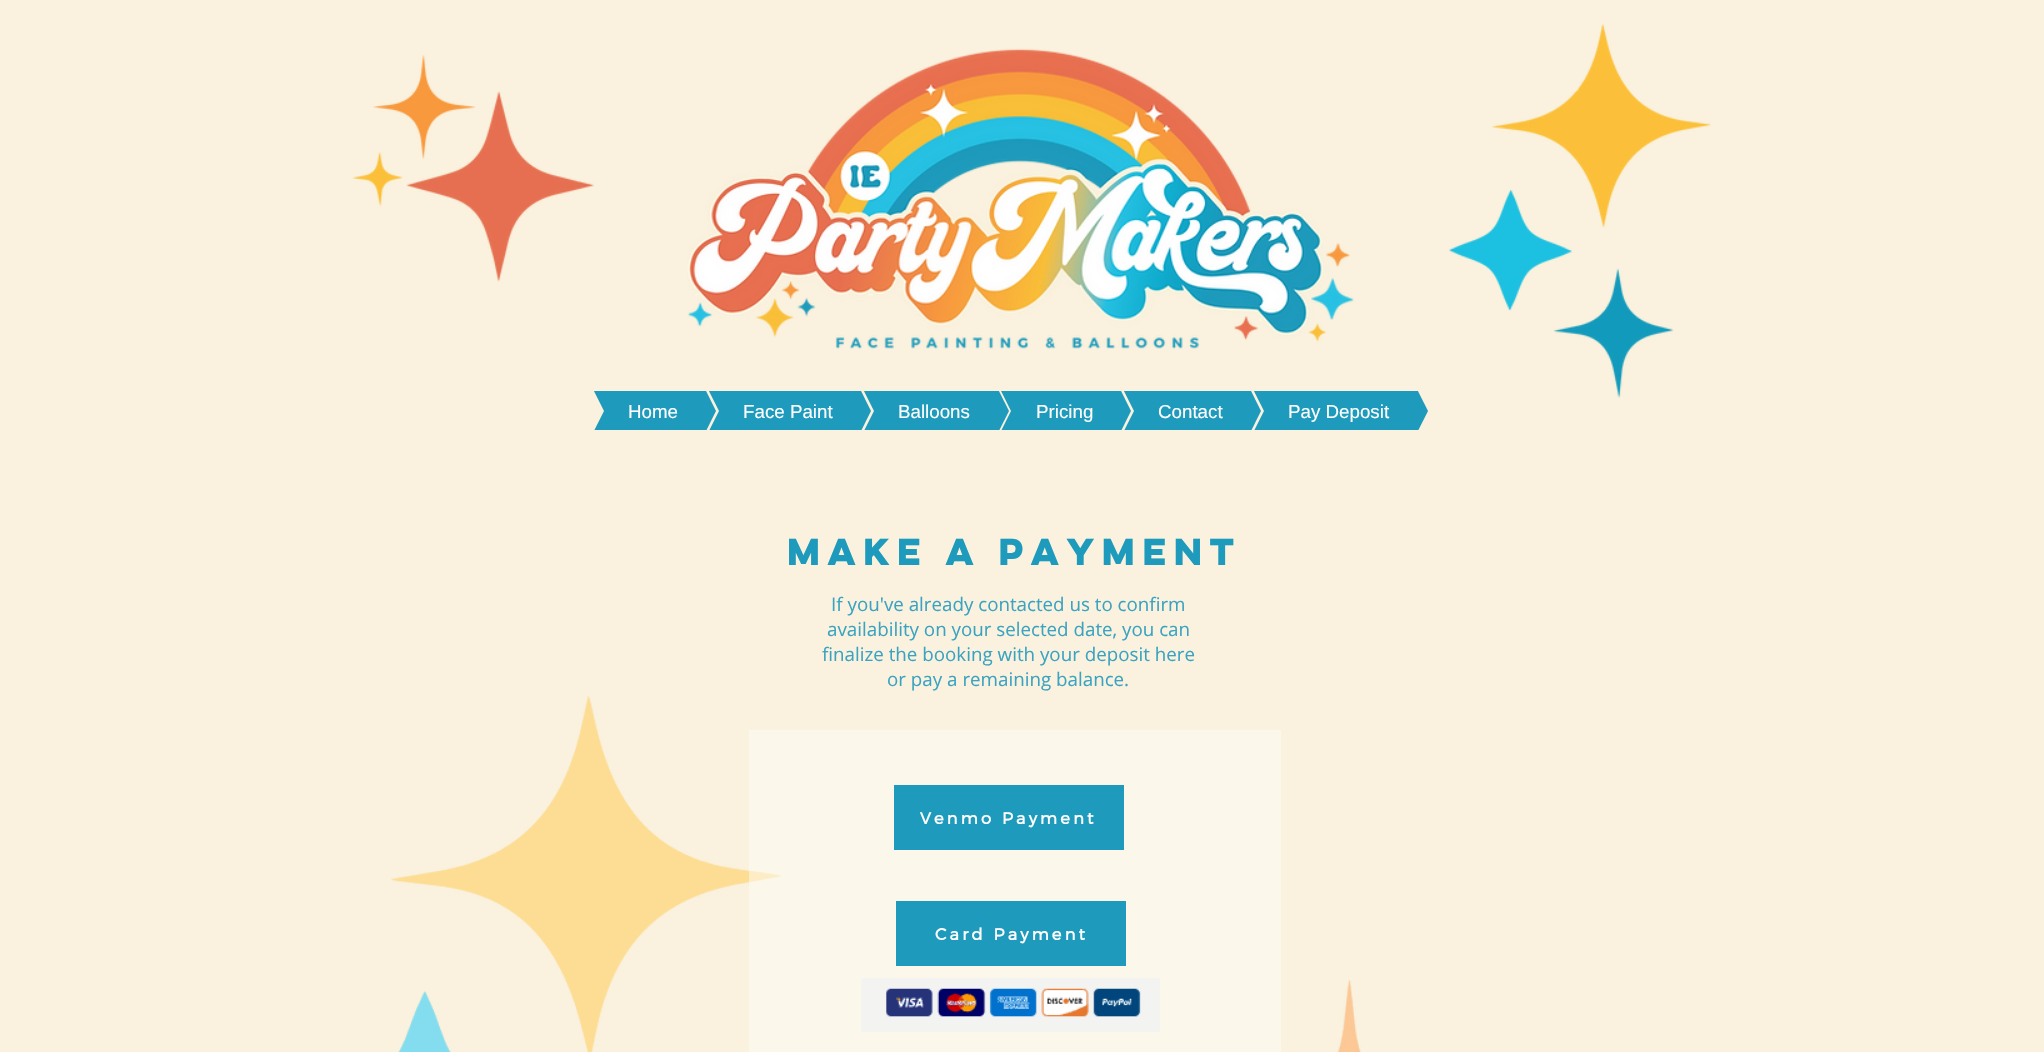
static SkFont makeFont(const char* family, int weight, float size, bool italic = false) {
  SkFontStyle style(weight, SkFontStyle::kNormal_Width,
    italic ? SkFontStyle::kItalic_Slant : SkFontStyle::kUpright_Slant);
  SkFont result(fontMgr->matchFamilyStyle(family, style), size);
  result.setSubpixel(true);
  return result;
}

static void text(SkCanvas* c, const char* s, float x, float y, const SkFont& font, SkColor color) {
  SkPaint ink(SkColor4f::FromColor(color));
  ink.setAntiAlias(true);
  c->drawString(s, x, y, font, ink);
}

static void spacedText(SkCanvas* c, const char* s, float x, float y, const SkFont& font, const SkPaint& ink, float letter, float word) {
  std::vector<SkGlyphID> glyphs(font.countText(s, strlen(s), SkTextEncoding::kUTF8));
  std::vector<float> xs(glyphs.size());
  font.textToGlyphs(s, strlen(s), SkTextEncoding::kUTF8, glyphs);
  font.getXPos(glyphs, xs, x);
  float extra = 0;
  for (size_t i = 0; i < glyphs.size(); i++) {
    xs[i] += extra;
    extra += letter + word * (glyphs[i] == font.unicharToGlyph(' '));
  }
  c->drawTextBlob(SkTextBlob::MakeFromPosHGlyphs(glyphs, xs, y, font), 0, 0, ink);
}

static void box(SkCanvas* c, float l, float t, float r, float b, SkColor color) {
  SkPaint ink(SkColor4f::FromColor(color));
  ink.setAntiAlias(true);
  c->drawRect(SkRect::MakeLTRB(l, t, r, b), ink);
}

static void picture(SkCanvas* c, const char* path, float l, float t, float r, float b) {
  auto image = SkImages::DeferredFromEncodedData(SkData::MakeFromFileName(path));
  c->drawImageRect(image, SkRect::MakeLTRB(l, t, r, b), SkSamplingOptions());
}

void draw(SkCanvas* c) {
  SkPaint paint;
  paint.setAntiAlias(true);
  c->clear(0xfffaf2de);
  picture(c, "img_01.png", 352, 55, 594, 282);
  picture(c, "img_02.png", 687, 48, 1354, 349);
  picture(c, "img_03.png", 1448, 23, 1711, 398);
  c->save();
  c->clipRect(SkRect::MakeLTRB(516, 391, 604, 430));
  paint.setColor(0xff1e9bbc);
  c->drawPath(SkPathBuilder().moveTo(516, 236).lineTo(604, 236).lineTo(604, 411).close().moveTo(604, 586).lineTo(516, 586).lineTo(604, 411).close().detach(), paint);
  c->restore();
  box(c, 604, 391, 629, 430, 0xff1e9bbc);
  c->save();
  c->clipRect(SkRect::MakeLTRB(629, 391, 716, 430));
  c->drawPath(SkPathBuilder().moveTo(716, 411).lineTo(629, 411).lineTo(629, 236).close().detach(), paint);
  c->drawPath(SkPathBuilder().moveTo(629, 411).lineTo(716, 411).lineTo(629, 586).close().detach(), paint);
  c->restore();
  SkFont face1 = makeFont("Liberation Sans", 400, 18.75f);
  text(c, "Home", 628, 418, face1, 0xffffffff);
  c->save();
  c->clipRect(SkRect::MakeLTRB(631, 391, 719, 430));
  c->drawPath(SkPathBuilder().moveTo(631, 236).lineTo(719, 236).lineTo(719, 411).close().moveTo(719, 586).lineTo(631, 586).lineTo(719, 411).close().detach(), paint);
  c->restore();
  box(c, 719, 391, 784, 430, 0xff1e9bbc);
  c->save();
  c->clipRect(SkRect::MakeLTRB(784, 391, 871, 430));
  c->drawPath(SkPathBuilder().moveTo(871, 411).lineTo(784, 411).lineTo(784, 236).close().detach(), paint);
  c->drawPath(SkPathBuilder().moveTo(784, 411).lineTo(871, 411).lineTo(784, 586).close().detach(), paint);
  c->restore();
  text(c, "Face Paint", 743, 418, face1, 0xffffffff);
  c->save();
  c->clipRect(SkRect::MakeLTRB(786, 391, 874, 430));
  c->drawPath(SkPathBuilder().moveTo(786, 236).lineTo(874, 236).lineTo(874, 411).close().moveTo(874, 586).lineTo(786, 586).lineTo(874, 411).close().detach(), paint);
  c->restore();
  box(c, 874, 391, 921, 430, 0xff1e9bbc);
  c->save();
  c->clipRect(SkRect::MakeLTRB(921, 391, 1009, 430));
  c->drawPath(SkPathBuilder().moveTo(1009, 411).lineTo(921, 411).lineTo(921, 236).close().detach(), paint);
  c->drawPath(SkPathBuilder().moveTo(921, 411).lineTo(1009, 411).lineTo(921, 586).close().detach(), paint);
  c->restore();
  text(c, "Balloons", 898, 418, face1, 0xffffffff);
  c->save();
  c->clipRect(SkRect::MakeLTRB(924, 391, 1011, 430));
  c->drawPath(SkPathBuilder().moveTo(924, 236).lineTo(1011, 236).lineTo(1011, 411).close().moveTo(1011, 586).lineTo(924, 586).lineTo(1011, 411).close().detach(), paint);
  c->restore();
  box(c, 1011, 391, 1044, 430, 0xff1e9bbc);
  c->save();
  c->clipRect(SkRect::MakeLTRB(1044, 391, 1131, 430));
  c->drawPath(SkPathBuilder().moveTo(1131, 411).lineTo(1044, 411).lineTo(1044, 236).close().detach(), paint);
  c->drawPath(SkPathBuilder().moveTo(1044, 411).lineTo(1131, 411).lineTo(1044, 586).close().detach(), paint);
  c->restore();
  text(c, "Pricing", 1036, 418, face1, 0xffffffff);
  c->save();
  c->clipRect(SkRect::MakeLTRB(1046, 391, 1134, 430));
  c->drawPath(SkPathBuilder().moveTo(1046, 236).lineTo(1134, 236).lineTo(1134, 411).close().moveTo(1134, 586).lineTo(1046, 586).lineTo(1134, 411).close().detach(), paint);
  c->restore();
  box(c, 1134, 391, 1174, 430, 0xff1e9bbc);
  c->save();
  c->clipRect(SkRect::MakeLTRB(1174, 391, 1261, 430));
  c->drawPath(SkPathBuilder().moveTo(1261, 411).lineTo(1174, 411).lineTo(1174, 236).close().detach(), paint);
  c->drawPath(SkPathBuilder().moveTo(1174, 411).lineTo(1261, 411).lineTo(1174, 586).close().detach(), paint);
  c->restore();
  text(c, "Contact", 1158, 418, face1, 0xffffffff);
  c->save();
  c->clipRect(SkRect::MakeLTRB(1176, 391, 1264, 430));
  c->drawPath(SkPathBuilder().moveTo(1176, 236).lineTo(1264, 236).lineTo(1264, 411).close().moveTo(1264, 586).lineTo(1176, 586).lineTo(1264, 411).close().detach(), paint);
  c->restore();
  box(c, 1264, 391, 1340, 430, 0xff1e9bbc);
  c->save();
  c->clipRect(SkRect::MakeLTRB(1340, 391, 1428, 430));
  c->drawPath(SkPathBuilder().moveTo(1428, 411).lineTo(1340, 411).lineTo(1340, 236).close().detach(), paint);
  c->drawPath(SkPathBuilder().moveTo(1340, 411).lineTo(1428, 411).lineTo(1340, 586).close().detach(), paint);
  c->restore();
  text(c, "Pay Deposit", 1288, 418, face1, 0xffffffff);
  SkFont face2 = makeFont("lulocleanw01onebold", 700, 33.75f);
  text(c, "Make a payment", 787, 565, face2, 0xff1e9bbc);
  SkFont face3 = makeFont("Open Sans", 400, 18.75f);
  text(c, "If you've already contacted us to confirm", 831, 611, face3, 0xff3ba3c1);
  text(c, "availability on your selected date, you can", 827, 636, face3, 0xff3ba3c1);
  text(c, "finalize the booking with your deposit here", 822, 661, face3, 0xff3ba3c1);
  text(c, "or pay a remaining balance.", 887, 686, face3, 0xff3ba3c1);
  picture(c, "img_04.png", 391, 696, 781, 1052);
  box(c, 749, 730, 1281, 1052, 0x7afdfdf9);
  box(c, 894, 785, 1124, 850, 0xff1e9bbc);
  SkFont face4 = makeFont("Montserrat", 700, 16.25f);
  paint.setColor(0xffffffff);
  spacedText(c, "Venmo Payment", 920, 824, face4, paint, 3.25f, 0);
  box(c, 896, 901, 1126, 966, 0xff1e9bbc);
  spacedText(c, "Card Payment", 935, 940, face4, paint, 3.25f, 0);
  picture(c, "img_05.png", 861, 978, 1160, 1032);
  picture(c, "img_06.png", 1337, 980, 1361, 1052);
}
